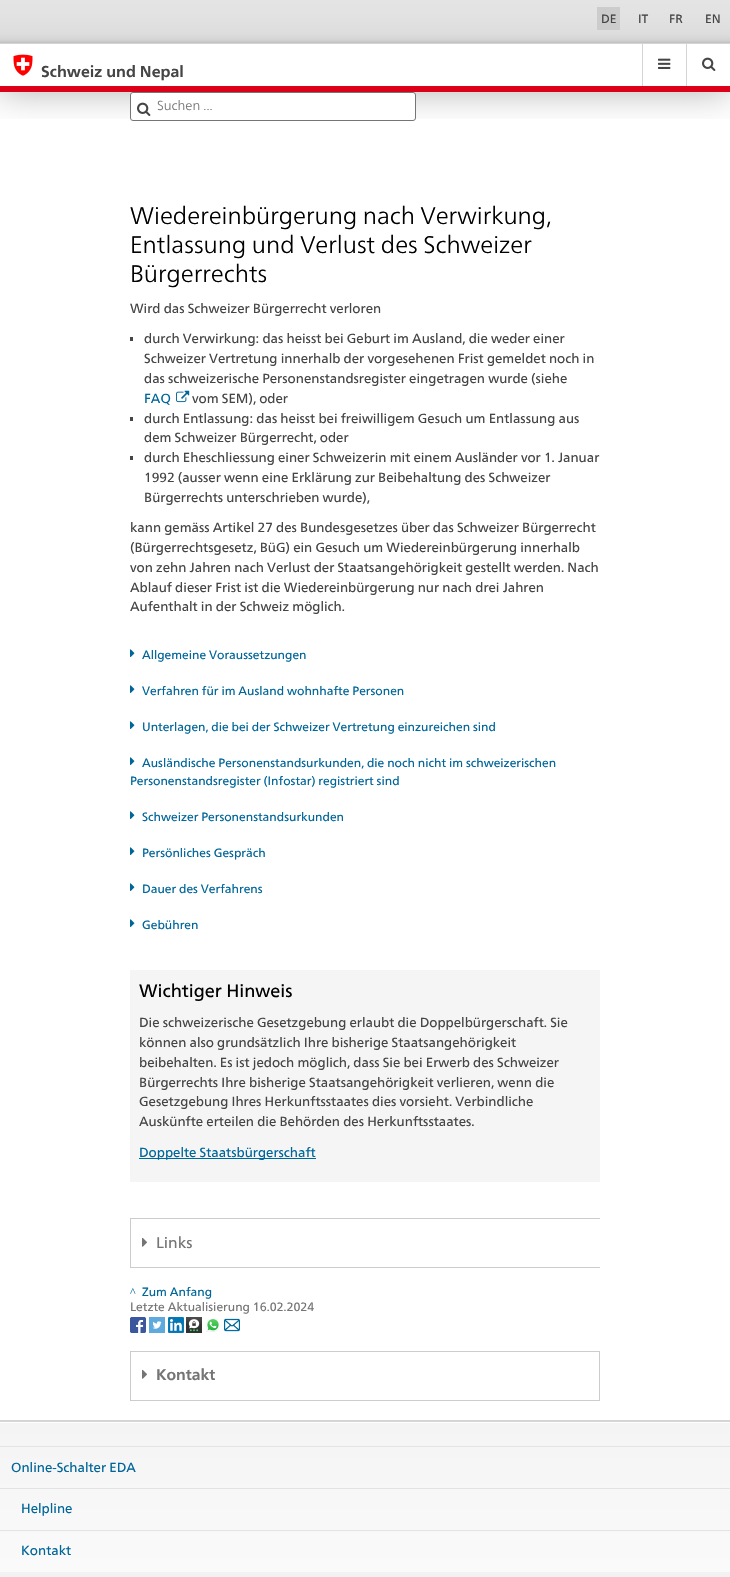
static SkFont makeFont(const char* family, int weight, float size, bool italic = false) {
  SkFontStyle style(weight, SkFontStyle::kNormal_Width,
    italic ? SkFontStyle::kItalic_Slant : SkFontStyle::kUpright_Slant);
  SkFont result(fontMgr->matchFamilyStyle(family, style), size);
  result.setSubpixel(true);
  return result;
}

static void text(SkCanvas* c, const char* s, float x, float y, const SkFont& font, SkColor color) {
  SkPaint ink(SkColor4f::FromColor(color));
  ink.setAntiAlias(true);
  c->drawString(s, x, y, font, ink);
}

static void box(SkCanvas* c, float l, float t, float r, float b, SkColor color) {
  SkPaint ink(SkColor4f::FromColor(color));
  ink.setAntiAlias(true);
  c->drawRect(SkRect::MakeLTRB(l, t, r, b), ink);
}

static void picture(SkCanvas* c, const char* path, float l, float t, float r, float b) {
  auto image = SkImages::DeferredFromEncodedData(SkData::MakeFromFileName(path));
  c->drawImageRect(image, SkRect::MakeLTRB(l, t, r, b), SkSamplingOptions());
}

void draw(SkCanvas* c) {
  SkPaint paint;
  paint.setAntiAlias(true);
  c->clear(0xffffffff);
  c->save();
  c->clipRect(SkRect::MakeLTRB(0, 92, 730, 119));
  paint.setColor(0x4d000000);
  paint.setMaskFilter(SkMaskFilter::MakeBlur(kNormal_SkBlurStyle, 18));
  c->drawRect(SkRect::MakeLTRB(0, 44, 730, 92), paint);
  paint.setMaskFilter(nullptr);
  c->restore();
  {
    const SkColor colors[] = {0xffe4e4e4, 0xffe2e2e2, 0xffdddddd, 0xffd5d5d5, 0xffcfcfcf, 0xffbebebe};
    const float stops[] = {0, 0.39f, 0.79f, 0.91f, 0.95f, 1};
    const SkPoint ends[] = {{365, 0}, {365, 43}};
    paint.setShader(SkGradientShader::MakeLinear(ends, colors, stops, 6, SkTileMode::kClamp));
    paint.setAlpha(255);
  }
  c->drawRect(SkRect::MakeLTRB(0, 0, 730, 43), paint);
  box(c, 0, 43, 730, 44, 0xffd5d5d5);
  box(c, 597, 7, 620, 30, 0xffcccccc);
  SkFont face1 = makeFont("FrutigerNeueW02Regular", 400, 12);
  text(c, "DE", 601, 23, face1, 0xff454545);
  text(c, "IT", 638, 23, face1, 0xff454545);
  text(c, "FR", 669, 23, face1, 0xff454545);
  text(c, "EN", 705, 23, face1, 0xff454545);
  box(c, 0, 86, 730, 92, 0xffdc0018);
  picture(c, "img_01.png", 13, 54, 33, 76);
  SkFont face2 = makeFont("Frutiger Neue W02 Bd", 700, 15.75f);
  text(c, "Schweiz und Nepal", 41, 77, face2, 0xff454545);
  box(c, 642, 44, 643, 86, 0xffd5d5d5);
  picture(c, "img_02.png", 658, 58, 671, 69);
  box(c, 686, 44, 687, 86, 0xffd5d5d5);
  picture(c, "img_03.png", 702, 57, 716, 71);
  paint.setShader(nullptr);
  paint.setColor(0xffffffff);
  c->drawRoundRect(SkRect::MakeLTRB(130.5f, 92.5f, 415.5f, 120.5f), 2.5f, 2.5f, paint);
  paint.setStyle(SkPaint::kStroke_Style);
  paint.setStrokeWidth(1);
  paint.setColor(0xff757575);
  c->drawRoundRect(SkRect::MakeLTRB(130.5f, 92.5f, 415.5f, 120.5f), 2.5f, 2.5f, paint);
  picture(c, "img_03.png", 137, 102, 151, 116);
  SkFont face3 = makeFont("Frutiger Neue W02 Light", 300, 13.2f);
  text(c, "Suchen ...", 157, 110, face3, 0xff757575);
  SkFont face4 = makeFont("Frutiger Neue W02 Light", 300, 24);
  text(c, "Wiedereinbürgerung nach Verwirkung,", 130, 224, face4, 0xff000000);
  text(c, "Entlassung und Verlust des Schweizer", 130, 253, face4, 0xff000000);
  text(c, "Bürgerrechts", 130, 282, face4, 0xff000000);
  SkFont face5 = makeFont("FrutigerNeueW02Regular", 400, 13.2f);
  text(c, "Wird das Schweizer Bürgerrecht verloren", 130, 313, face5, 0xff454545);
  box(c, 130, 337, 133, 341, 0xff454545);
  text(c, "durch Verwirkung: das heisst bei Geburt im Ausland, die weder einer", 144, 343, face5, 0xff454545);
  text(c, "Schweizer Vertretung innerhalb der vorgesehenen Frist gemeldet noch in", 144, 363, face5, 0xff454545);
  text(c, "das schweizerische Personenstandsregister eingetragen wurde (siehe", 144, 383, face5, 0xff454545);
  text(c, "FAQ", 144, 403, face5, 0xff006699);
  picture(c, "img_04.png", 176, 390, 190, 403);
  text(c, "vom SEM), oder", 192, 403, face5, 0xff454545);
  box(c, 130, 417, 133, 421, 0xff454545);
  text(c, "durch Entlassung: das heisst bei freiwilligem Gesuch um Entlassung aus", 144, 423, face5, 0xff454545);
  text(c, "dem Schweizer Bürgerrecht, oder", 144, 442, face5, 0xff454545);
  box(c, 130, 456, 133, 460, 0xff454545);
  text(c, "durch Eheschliessung einer Schweizerin mit einem Ausländer vor 1. Januar", 144, 462, face5, 0xff454545);
  text(c, "1992 (ausser wenn eine Erklärung zur Beibehaltung des Schweizer", 144, 482, face5, 0xff454545);
  text(c, "Bürgerrechts unterschrieben wurde),", 144, 502, face5, 0xff454545);
  text(c, "kann gemäss Artikel 27 des Bundesgesetzes über das Schweizer Bürgerrecht", 130, 532, face5, 0xff454545);
  text(c, "(Bürgerrechtsgesetz, BüG) ein Gesuch um Wiedereinbürgerung innerhalb", 130, 552, face5, 0xff454545);
  text(c, "von zehn Jahren nach Verlust der Staatsangehörigkeit gestellt werden. Nach", 130, 572, face5, 0xff454545);
  text(c, "Ablauf dieser Frist ist die Wiedereinbürgerung nur nach drei Jahren", 130, 592, face5, 0xff454545);
  text(c, "Aufenthalt in der Schweiz möglich.", 130, 611, face5, 0xff454545);
  picture(c, "img_05.png", 130, 649, 135, 657);
  text(c, "Allgemeine Voraussetzungen", 142, 659, face1, 0xff006699);
  picture(c, "img_05.png", 130, 685, 135, 693);
  text(c, "Verfahren für im Ausland wohnhafte Personen", 142, 695, face1, 0xff006699);
  picture(c, "img_05.png", 130, 721, 135, 729);
  text(c, "Unterlagen, die bei der Schweizer Vertretung einzureichen sind", 142, 731, face1, 0xff006699);
  picture(c, "img_05.png", 130, 757, 135, 765);
  text(c, "Ausländische Personenstandsurkunden, die noch nicht im schweizerischen", 142, 767, face1, 0xff006699);
  text(c, "Personenstandsregister (Infostar) registriert sind", 130, 785, face1, 0xff006699);
  picture(c, "img_05.png", 130, 811, 135, 819);
  text(c, "Schweizer Personenstandsurkunden", 142, 821, face1, 0xff006699);
  picture(c, "img_05.png", 130, 847, 135, 855);
  text(c, "Persönliches Gespräch", 142, 857, face1, 0xff006699);
  picture(c, "img_05.png", 130, 883, 135, 891);
  text(c, "Dauer des Verfahrens", 142, 893, face1, 0xff006699);
  picture(c, "img_05.png", 130, 919, 135, 927);
  text(c, "Gebühren", 142, 929, face1, 0xff006699);
  box(c, 130, 970, 600, 1182, 0xfff5f5f5);
  SkFont face6 = makeFont("FrutigerNeueW02Regular", 400, 18);
  text(c, "Wichtiger Hinweis", 139, 997, face6, 0xff000000);
  text(c, "Die schweizerische Gesetzgebung erlaubt die Doppelbürgerschaft. Sie", 139, 1027, face5, 0xff454545);
  text(c, "können also grundsätzlich Ihre bisherige Staatsangehörigkeit", 139, 1047, face5, 0xff454545);
  text(c, "beibehalten. Es ist jedoch möglich, dass Sie bei Erwerb des Schweizer", 139, 1067, face5, 0xff454545);
  text(c, "Bürgerrechts Ihre bisherige Staatsangehörigkeit verlieren, wenn die", 139, 1087, face5, 0xff454545);
  text(c, "Gesetzgebung Ihres Herkunftsstaates dies vorsieht. Verbindliche", 139, 1106, face5, 0xff454545);
  text(c, "Auskünfte erteilen die Behörden des Herkunftsstaates.", 139, 1126, face5, 0xff454545);
  box(c, 139, 1158, 316, 1159, 0xff006699);
  text(c, "Doppelte Staatsbürgerschaft", 139, 1157, face5, 0xff006699);
  box(c, 130, 1267, 600, 1268, 0xffcccccc);
  box(c, 130, 1218, 600, 1219, 0xffcccccc);
  box(c, 130, 1218, 131, 1267, 0xffcccccc);
  picture(c, "img_06.png", 142, 1237, 147, 1247);
  SkFont face7 = makeFont("FrutigerNeueW02Regular", 400, 15.5f);
  text(c, "Links", 156, 1248, face7, 0xff757575);
  SkFont face8 = makeFont("Liberation Serif", 400, 12);
  text(c, "^", 130, 1296, face8, 0xff006699);
  text(c, "Zum Anfang", 142, 1296, face1, 0xff006699);
  text(c, "Letzte Aktualisierung 16.02.2024", 130, 1311, face1, 0xff757575);
  picture(c, "img_07.png", 130, 1317, 146, 1333);
  picture(c, "img_08.png", 149, 1317, 165, 1333);
  picture(c, "img_09.png", 168, 1317, 184, 1333);
  picture(c, "img_10.png", 186, 1317, 202, 1333);
  picture(c, "img_11.png", 206, 1318, 220, 1332);
  picture(c, "img_12.png", 224, 1318, 240, 1332);
  box(c, 130, 1400, 600, 1401, 0xffcccccc);
  box(c, 130, 1351, 600, 1352, 0xffcccccc);
  box(c, 599, 1351, 600, 1400, 0xffcccccc);
  box(c, 130, 1351, 131, 1400, 0xffcccccc);
  picture(c, "img_06.png", 142, 1369, 147, 1379);
  SkFont face9 = makeFont("Frutiger Neue W02 Bd", 700, 15.5f);
  text(c, "Kontakt", 156, 1380, face9, 0xff757575);
  box(c, 0, 1572, 730, 1577, 0xfff2f2f2);
  box(c, 0, 1420, 730, 1422, 0xffd5d5d5);
  paint.setStyle(SkPaint::kFill_Style);
  {
    const SkColor colors[] = {0xfff4f4f4, 0xfffafafa};
    const float stops[] = {0, 1};
    const SkPoint ends[] = {{365, 1422}, {365, 1572}};
    paint.setShader(SkGradientShader::MakeLinear(ends, colors, stops, 2, SkTileMode::kClamp));
    paint.setAlpha(255);
  }
  c->drawRect(SkRect::MakeLTRB(0, 1423, 730, 1572), paint);
  box(c, 0, 1446, 730, 1447, 0xffe3e3e3);
  text(c, "Online-Schalter EDA", 11, 1472, face5, 0xff006699);
  box(c, 0, 1488, 730, 1489, 0xffe3e3e3);
  text(c, "Helpline", 21, 1513, face5, 0xff006699);
  box(c, 0, 1530, 730, 1531, 0xffe3e3e3);
  text(c, "Kontakt", 21, 1555, face5, 0xff006699);
}
